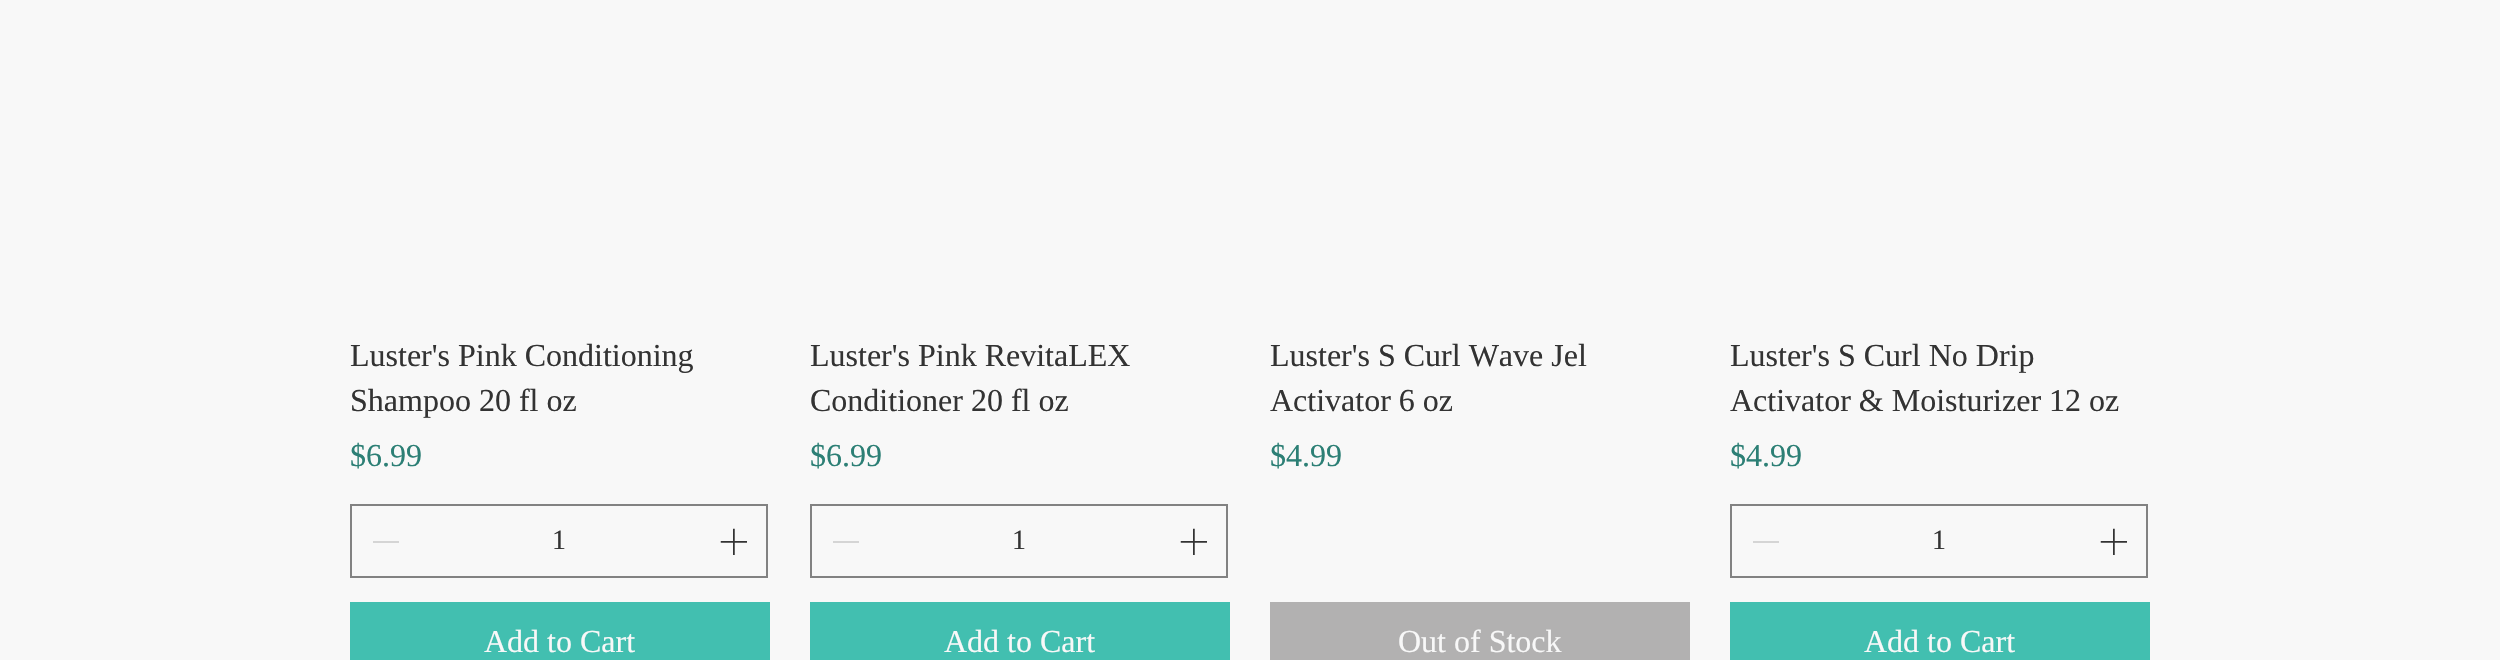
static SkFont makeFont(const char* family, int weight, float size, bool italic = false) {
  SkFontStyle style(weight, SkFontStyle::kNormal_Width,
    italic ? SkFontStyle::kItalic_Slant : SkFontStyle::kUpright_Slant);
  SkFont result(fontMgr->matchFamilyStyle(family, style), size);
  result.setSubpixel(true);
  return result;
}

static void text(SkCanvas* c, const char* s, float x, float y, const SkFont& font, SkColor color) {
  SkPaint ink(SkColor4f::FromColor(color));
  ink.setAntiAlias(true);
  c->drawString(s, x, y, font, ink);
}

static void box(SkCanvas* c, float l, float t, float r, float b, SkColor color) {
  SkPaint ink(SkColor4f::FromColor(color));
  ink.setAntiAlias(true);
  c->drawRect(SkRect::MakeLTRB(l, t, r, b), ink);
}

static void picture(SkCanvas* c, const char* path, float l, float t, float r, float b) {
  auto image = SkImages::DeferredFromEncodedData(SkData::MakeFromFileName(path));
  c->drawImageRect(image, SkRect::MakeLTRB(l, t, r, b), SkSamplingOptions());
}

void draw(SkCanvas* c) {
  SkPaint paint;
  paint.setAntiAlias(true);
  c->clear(0xfff8f8f8);
  SkFont face1 = makeFont("Liberation Serif", 400, 32);
  text(c, "Luster's Pink Conditioning", 350, 366, face1, 0xff333333);
  text(c, "Shampoo 20 fl oz", 350, 411, face1, 0xff333333);
  text(c, "$6.99", 350, 466, face1, 0xff2c7f75);
  paint.setStyle(SkPaint::kStroke_Style);
  paint.setStrokeWidth(2);
  paint.setColor(0xff828282);
  c->drawRect(SkRect::MakeLTRB(351, 505, 767, 577), paint);
  box(c, 373, 541, 399, 543, 0xffd5d5d5);
  SkFont face2 = makeFont("Liberation Serif", 400, 28);
  text(c, "1", 552, 549, face2, 0xff333333);
  picture(c, "img_01.png", 720, 528, 747, 555);
  box(c, 350, 602, 770, 660, 0xff42bfb0);
  text(c, "Add to Cart", 484, 652, face1, 0xfff8f8f8);
  text(c, "Luster's Pink RevitaLEX", 810, 366, face1, 0xff333333);
  text(c, "Conditioner 20 fl oz", 810, 411, face1, 0xff333333);
  text(c, "$6.99", 810, 466, face1, 0xff2c7f75);
  c->drawRect(SkRect::MakeLTRB(811, 505, 1227, 577), paint);
  box(c, 833, 541, 859, 543, 0xffd5d5d5);
  text(c, "1", 1012, 549, face2, 0xff333333);
  picture(c, "img_01.png", 1180, 528, 1207, 555);
  box(c, 810, 602, 1230, 660, 0xff42bfb0);
  text(c, "Add to Cart", 944, 652, face1, 0xfff8f8f8);
  text(c, "Luster's S Curl Wave Jel", 1270, 366, face1, 0xff333333);
  text(c, "Activator 6 oz", 1270, 411, face1, 0xff333333);
  text(c, "$4.99", 1270, 466, face1, 0xff2c7f75);
  box(c, 1270, 602, 1690, 660, 0xffb2b1b1);
  text(c, "Out of Stock", 1398, 652, face1, 0xfff8f8f8);
  text(c, "Luster's S Curl No Drip", 1730, 366, face1, 0xff333333);
  text(c, "Activator & Moisturizer 12 oz", 1730, 411, face1, 0xff333333);
  text(c, "$4.99", 1730, 466, face1, 0xff2c7f75);
  c->drawRect(SkRect::MakeLTRB(1731, 505, 2147, 577), paint);
  box(c, 1753, 541, 1779, 543, 0xffd5d5d5);
  text(c, "1", 1932, 549, face2, 0xff333333);
  picture(c, "img_01.png", 2100, 528, 2127, 555);
  box(c, 1730, 602, 2150, 660, 0xff42bfb0);
  text(c, "Add to Cart", 1864, 652, face1, 0xfff8f8f8);
}
